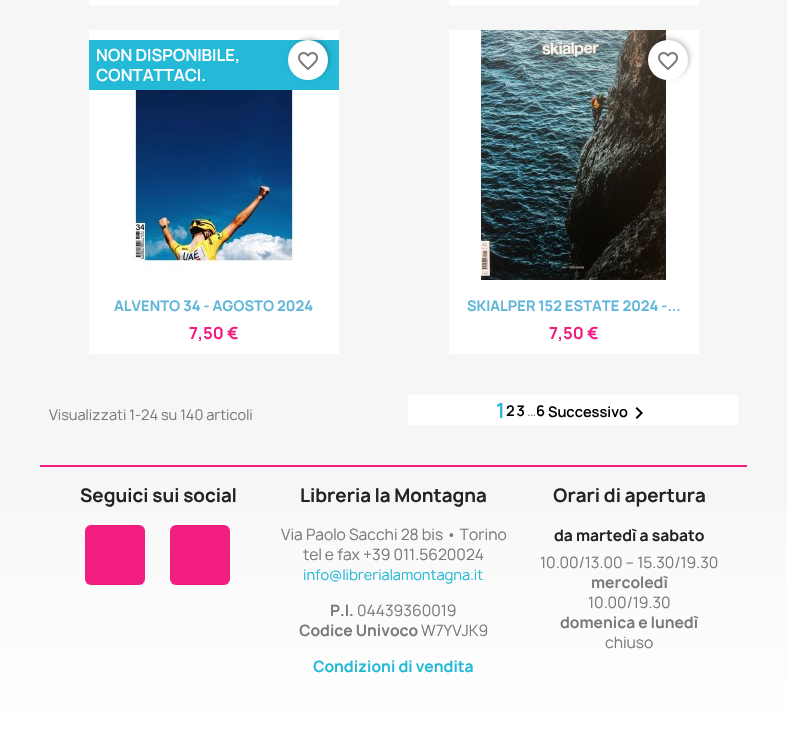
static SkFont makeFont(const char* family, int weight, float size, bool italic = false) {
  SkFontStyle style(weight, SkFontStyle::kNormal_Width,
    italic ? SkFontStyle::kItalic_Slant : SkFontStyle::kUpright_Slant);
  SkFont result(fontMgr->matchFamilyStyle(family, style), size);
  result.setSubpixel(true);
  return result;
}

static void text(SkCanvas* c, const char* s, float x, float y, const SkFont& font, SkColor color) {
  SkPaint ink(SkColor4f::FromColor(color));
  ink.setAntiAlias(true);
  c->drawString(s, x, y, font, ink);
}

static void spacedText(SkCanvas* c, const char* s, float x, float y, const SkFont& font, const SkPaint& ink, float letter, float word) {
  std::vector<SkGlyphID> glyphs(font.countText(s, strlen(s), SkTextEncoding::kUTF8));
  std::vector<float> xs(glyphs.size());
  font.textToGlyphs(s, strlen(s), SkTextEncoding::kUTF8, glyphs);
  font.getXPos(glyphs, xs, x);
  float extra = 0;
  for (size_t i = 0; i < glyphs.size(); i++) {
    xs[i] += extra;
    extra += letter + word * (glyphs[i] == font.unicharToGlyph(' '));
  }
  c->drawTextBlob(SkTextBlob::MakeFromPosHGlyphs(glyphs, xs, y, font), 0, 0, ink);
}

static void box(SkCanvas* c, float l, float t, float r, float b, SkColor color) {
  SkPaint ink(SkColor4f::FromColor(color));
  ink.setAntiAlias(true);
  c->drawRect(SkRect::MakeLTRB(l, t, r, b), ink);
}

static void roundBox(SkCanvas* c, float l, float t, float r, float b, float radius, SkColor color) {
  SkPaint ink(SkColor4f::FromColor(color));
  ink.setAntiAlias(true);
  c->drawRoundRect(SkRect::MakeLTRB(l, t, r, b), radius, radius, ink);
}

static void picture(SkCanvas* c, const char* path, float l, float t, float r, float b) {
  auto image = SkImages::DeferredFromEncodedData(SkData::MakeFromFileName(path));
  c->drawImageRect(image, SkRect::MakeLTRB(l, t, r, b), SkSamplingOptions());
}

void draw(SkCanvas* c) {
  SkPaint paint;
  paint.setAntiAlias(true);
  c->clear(0xfff6f6f6);
  box(c, 89, 0, 339, 5, 0xffffffff);
  box(c, 449, 0, 699, 5, 0xffffffff);
  box(c, 89, 30, 339, 354, 0xffffffff);
  box(c, 89, 40, 339, 90, 0xff24b9d7);
  SkFont face1 = makeFont("Manrope", 600, 16);
  text(c, "NON DISPONIBILE,", 96, 61, face1, 0xffffffff);
  text(c, "CONTATTACI.", 96, 81, face1, 0xffffffff);
  paint.setColor(0x33000000);
  paint.setMaskFilter(SkMaskFilter::MakeBlur(kNormal_SkBlurStyle, 2));
  c->drawRoundRect(SkRect::MakeLTRB(290, 38, 330, 78), 20, 20, paint);
  paint.setMaskFilter(nullptr);
  paint.setColor(0xffffffff);
  c->drawCircle(308, 60, 20, paint);
  picture(c, "img_01.png", 298, 52, 318, 71);
  picture(c, "img_02.png", 129, 90, 297, 270);
  SkFont face2 = makeFont("Manrope", 700, 14);
  text(c, "ALVENTO 34 - AGOSTO 2024", 114, 311, face2, 0xff5fb6d9);
  SkFont face3 = makeFont("Manrope", 700, 16);
  text(c, "7,50 €", 189, 339, face3, 0xfff21d81);
  box(c, 449, 30, 699, 354, 0xffffffff);
  picture(c, "img_03.png", 480, 30, 672, 280);
  paint.setColor(0x33000000);
  paint.setMaskFilter(SkMaskFilter::MakeBlur(kNormal_SkBlurStyle, 2));
  c->drawRoundRect(SkRect::MakeLTRB(650, 38, 690, 78), 20, 20, paint);
  paint.setMaskFilter(nullptr);
  paint.setColor(0xffffffff);
  c->drawCircle(668, 60, 20, paint);
  picture(c, "img_01.png", 658, 52, 678, 71);
  text(c, "SKIALPER 152 ESTATE 2024 -...", 467, 311, face2, 0xff5fb6d9);
  text(c, "7,50 €", 549, 339, face3, 0xfff21d81);
  SkFont face4 = makeFont("Manrope", 400, 14);
  text(c, "Visualizzati 1-24 su 140 articoli", 49, 420, face4, 0xff7a7a7a);
  box(c, 408, 395, 738, 425, 0xffffffff);
  SkFont face5 = makeFont("Manrope", 600, 20);
  paint.setColor(0xff24b9d7);
  spacedText(c, "1", 496, 418, face5, paint, 2, 0);
  SkFont face6 = makeFont("Manrope", 600, 14);
  paint.setColor(0xff000000);
  spacedText(c, "23", 506, 416, face6, paint, 2, 0);
  text(c, "…", 527, 416, face4, 0xff7a7a7a);
  spacedText(c, "6", 536, 416, face6, paint, 2, 0);
  text(c, "Successivo", 548, 417, face6, 0xff000000);
  picture(c, "img_04.png", 635, 407, 643, 419);
  {
    const SkColor colors[] = {0xfff6f6f6, 0xffffffff};
    const float stops[] = {0, 1};
    const SkPoint ends[] = {{394, 425}, {394, 733}};
    paint.setShader(SkGradientShader::MakeLinear(ends, colors, stops, 2, SkTileMode::kClamp));
    paint.setAlpha(255);
  }
  c->drawRect(SkRect::MakeLTRB(0, 511, 787, 733), paint);
  box(c, 40, 465, 747, 467, 0xfff21d81);
  SkFont face7 = makeFont("Manrope", 700, 18);
  text(c, "Seguici sui social", 80, 502, face7, 0xff232323);
  roundBox(c, 85, 525, 145, 585, 6, 0xfff21d81);
  roundBox(c, 170, 525, 230, 585, 6, 0xfff21d81);
  text(c, "Libreria la Montagna", 300, 502, face7, 0xff232323);
  SkFont face8 = makeFont("Manrope", 400, 15);
  text(c, "Via Paolo Sacchi 28 bis • Torino", 281, 540, face8, 0xff7a7a7a);
  text(c, "tel e fax +39 011.5620024", 303, 560, face8, 0xff7a7a7a);
  text(c, "info@librerialamontagna.it", 303, 580, face4, 0xff24b9d7);
  SkFont face9 = makeFont("Manrope", 700, 15);
  text(c, "P.I.", 330, 616, face9, 0xff7a7a7a);
  text(c, "04439360019", 357, 616, face8, 0xff7a7a7a);
  text(c, "Codice Univoco", 299, 636, face9, 0xff7a7a7a);
  text(c, "W7YVJK9", 421, 636, face8, 0xff7a7a7a);
  text(c, "Condizioni di vendita", 313, 672, face9, 0xff24b9d7);
  text(c, "Orari di apertura", 553, 502, face7, 0xff232323);
  text(c, "da martedì a sabato", 554, 541, face9, 0xff232323);
  text(c, "10.00/13.00 – 15.30/19.30", 540, 568, face8, 0xff7a7a7a);
  text(c, "mercoledì", 591, 588, face9, 0xff7a7a7a);
  text(c, "10.00/19.30", 588, 608, face8, 0xff7a7a7a);
  text(c, "domenica e lunedì", 560, 628, face9, 0xff7a7a7a);
  text(c, "chiuso", 605, 648, face8, 0xff7a7a7a);
}
